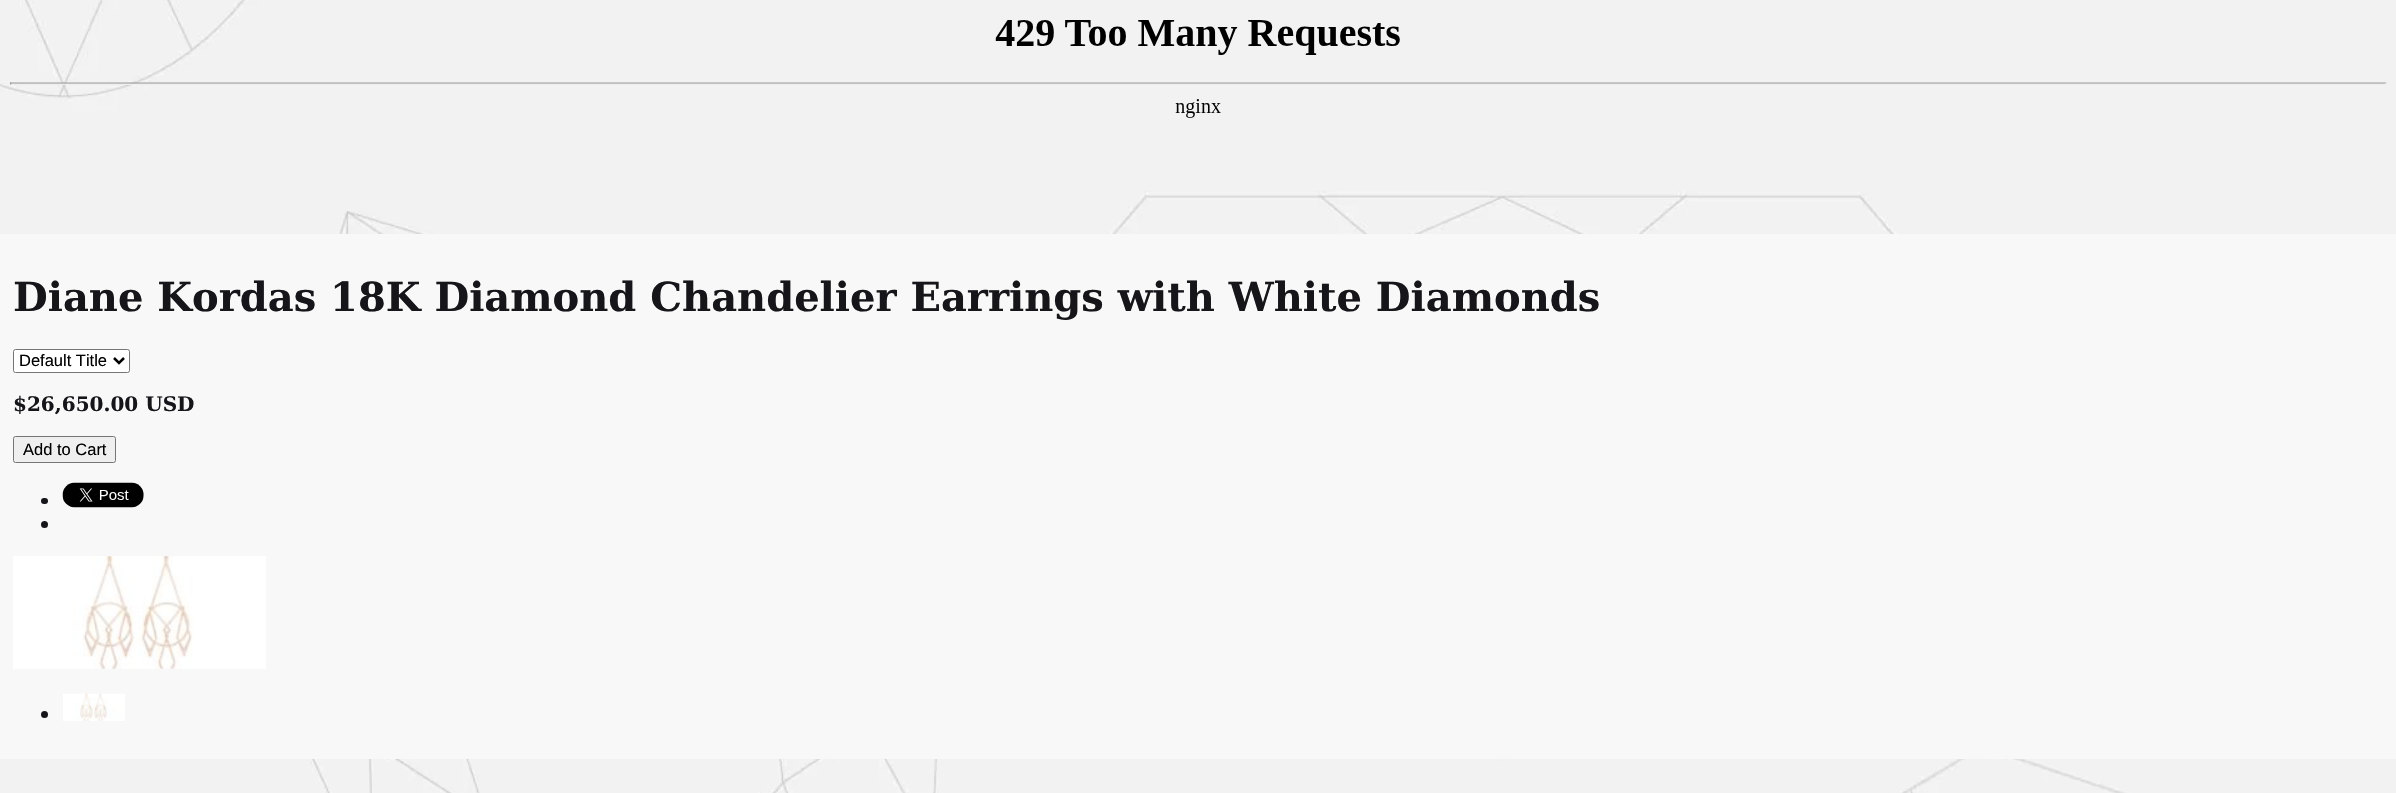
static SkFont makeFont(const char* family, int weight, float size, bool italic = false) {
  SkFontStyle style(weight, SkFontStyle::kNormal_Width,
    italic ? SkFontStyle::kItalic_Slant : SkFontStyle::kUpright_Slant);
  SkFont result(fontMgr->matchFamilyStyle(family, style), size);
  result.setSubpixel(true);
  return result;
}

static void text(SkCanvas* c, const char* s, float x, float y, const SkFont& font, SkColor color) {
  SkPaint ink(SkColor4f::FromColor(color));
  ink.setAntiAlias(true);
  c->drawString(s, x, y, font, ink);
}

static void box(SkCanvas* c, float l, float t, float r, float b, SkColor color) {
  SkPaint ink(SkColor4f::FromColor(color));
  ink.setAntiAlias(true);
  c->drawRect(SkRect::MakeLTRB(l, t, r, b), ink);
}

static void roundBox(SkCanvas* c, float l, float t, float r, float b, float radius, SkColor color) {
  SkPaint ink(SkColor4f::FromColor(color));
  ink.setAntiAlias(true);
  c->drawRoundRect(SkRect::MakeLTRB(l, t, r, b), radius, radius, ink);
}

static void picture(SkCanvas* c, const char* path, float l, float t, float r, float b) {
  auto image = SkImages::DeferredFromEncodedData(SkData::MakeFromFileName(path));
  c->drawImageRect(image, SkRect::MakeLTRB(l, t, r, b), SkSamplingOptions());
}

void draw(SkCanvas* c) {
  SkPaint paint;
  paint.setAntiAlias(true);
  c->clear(0xffffffff);
  picture(c, "img_01.png", 0, 0, 2396, 793);
  picture(c, "img_02.png", 10, 20, 2387, 118);
  box(c, 0, 234, 2396, 759, 0xfff8f8f8);
  SkFont face1 = makeFont("DejaVu Serif", 700, 40);
  text(c, "Diane Kordas 18K Diamond Chandelier Earrings with White Diamonds", 13, 311, face1, 0xff161519);
  paint.setColor(0xffffffff);
  c->drawRoundRect(SkRect::MakeLTRB(13.5f, 349.5f, 129.5f, 372.5f), 2, 2, paint);
  paint.setStyle(SkPaint::kStroke_Style);
  paint.setStrokeWidth(1);
  paint.setColor(0xff767676);
  c->drawRoundRect(SkRect::MakeLTRB(13.5f, 349.5f, 129.5f, 372.5f), 2, 2, paint);
  paint.setStrokeWidth(2.5f);
  paint.setColor(0xff000000);
  c->drawPath(SkPathBuilder().moveTo(114, 358).lineTo(119, 363).lineTo(124, 358).detach(), paint);
  SkFont face2 = makeFont("Liberation Sans", 400, 16.5f);
  text(c, "Default Title", 19, 366, face2, 0xff000000);
  SkFont face3 = makeFont("DejaVu Serif", 700, 20);
  text(c, "$26,650.00 USD", 13, 411, face3, 0xff161519);
  paint.setStyle(SkPaint::kFill_Style);
  paint.setColor(0xffefefef);
  c->drawRoundRect(SkRect::MakeLTRB(13.5f, 436.5f, 115.5f, 462.5f), 2, 2, paint);
  paint.setStyle(SkPaint::kStroke_Style);
  paint.setStrokeWidth(1);
  paint.setColor(0xff767676);
  c->drawRoundRect(SkRect::MakeLTRB(13.5f, 436.5f, 115.5f, 462.5f), 2, 2, paint);
  text(c, "Add to Cart", 23, 455, face2, 0xff000000);
  roundBox(c, 41, 498, 48, 504, 3, 0xff161519);
  picture(c, "img_03.png", 62, 482, 144, 508);
  paint.setStyle(SkPaint::kFill_Style);
  paint.setColor(0xff161519);
  c->drawCircle(44.5f, 524.5f, 3.5f, paint);
  picture(c, "img_04.png", 13, 556, 266, 669);
  c->drawCircle(44.5f, 714.5f, 3.5f, paint);
  picture(c, "img_05.png", 63, 693, 125, 721);
}
